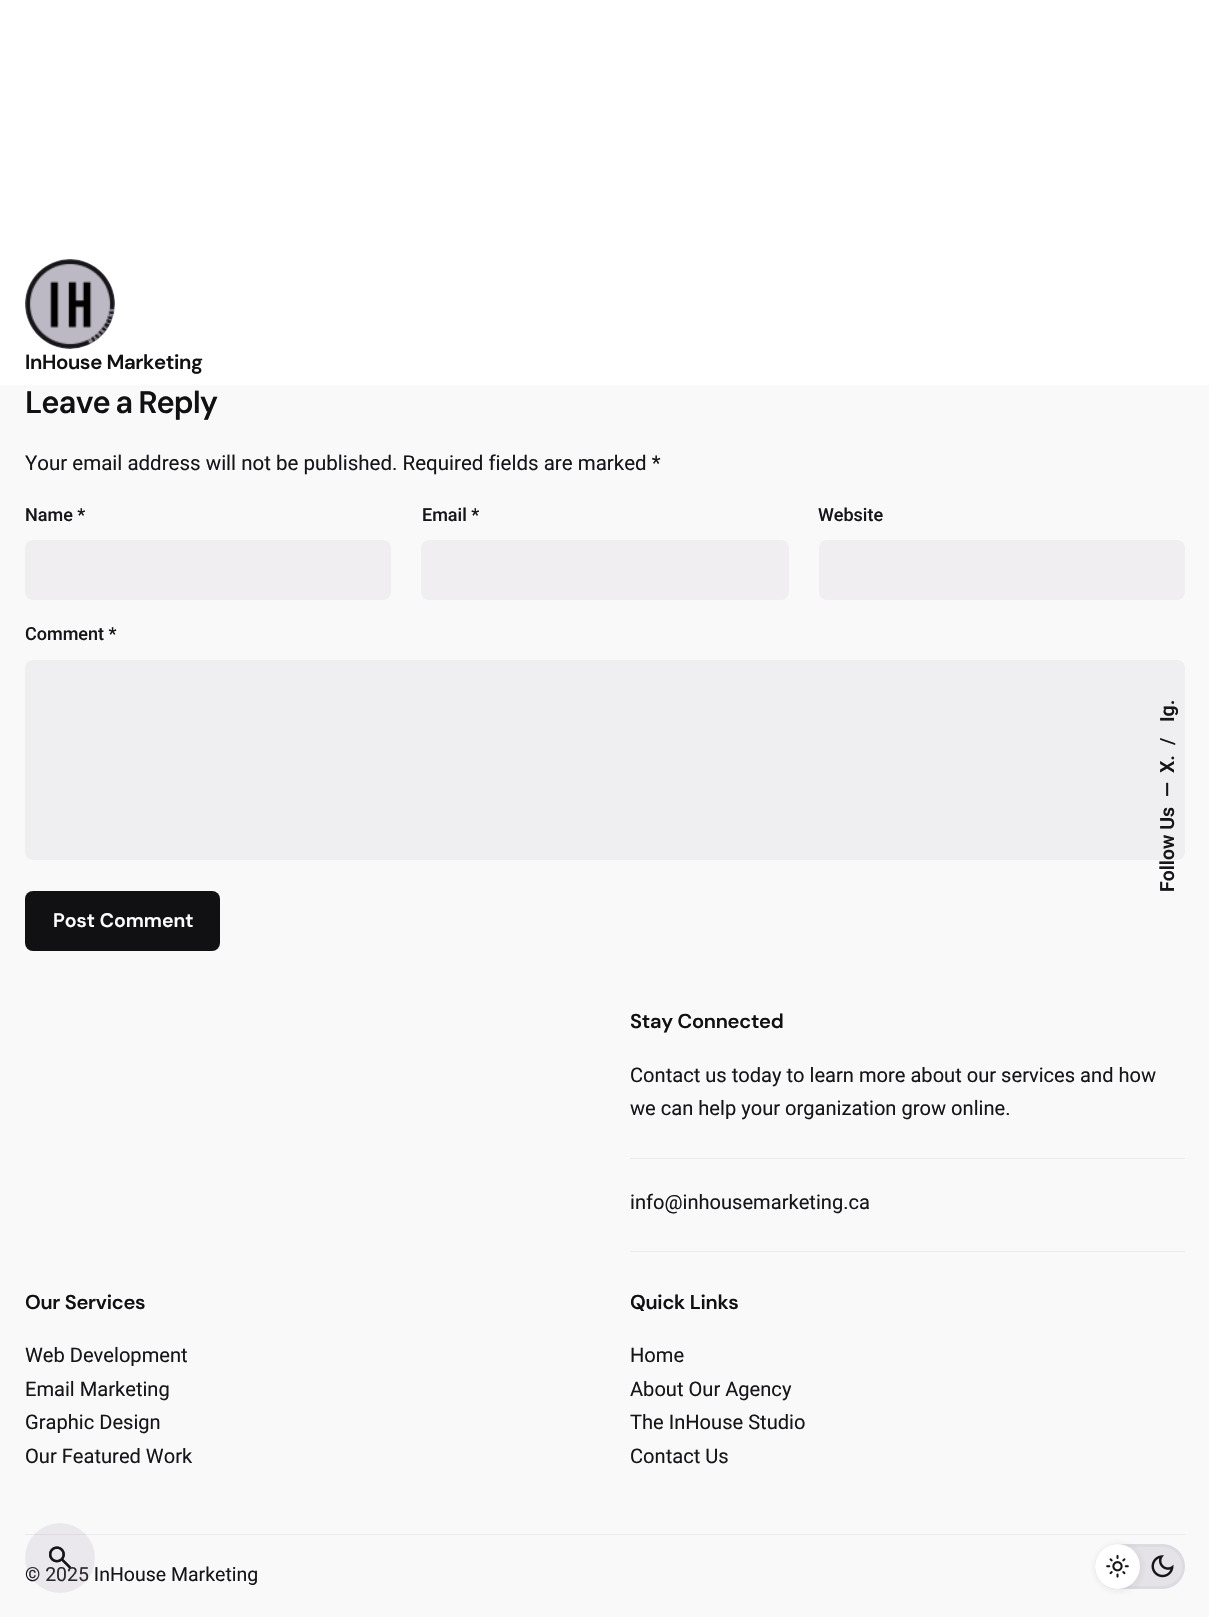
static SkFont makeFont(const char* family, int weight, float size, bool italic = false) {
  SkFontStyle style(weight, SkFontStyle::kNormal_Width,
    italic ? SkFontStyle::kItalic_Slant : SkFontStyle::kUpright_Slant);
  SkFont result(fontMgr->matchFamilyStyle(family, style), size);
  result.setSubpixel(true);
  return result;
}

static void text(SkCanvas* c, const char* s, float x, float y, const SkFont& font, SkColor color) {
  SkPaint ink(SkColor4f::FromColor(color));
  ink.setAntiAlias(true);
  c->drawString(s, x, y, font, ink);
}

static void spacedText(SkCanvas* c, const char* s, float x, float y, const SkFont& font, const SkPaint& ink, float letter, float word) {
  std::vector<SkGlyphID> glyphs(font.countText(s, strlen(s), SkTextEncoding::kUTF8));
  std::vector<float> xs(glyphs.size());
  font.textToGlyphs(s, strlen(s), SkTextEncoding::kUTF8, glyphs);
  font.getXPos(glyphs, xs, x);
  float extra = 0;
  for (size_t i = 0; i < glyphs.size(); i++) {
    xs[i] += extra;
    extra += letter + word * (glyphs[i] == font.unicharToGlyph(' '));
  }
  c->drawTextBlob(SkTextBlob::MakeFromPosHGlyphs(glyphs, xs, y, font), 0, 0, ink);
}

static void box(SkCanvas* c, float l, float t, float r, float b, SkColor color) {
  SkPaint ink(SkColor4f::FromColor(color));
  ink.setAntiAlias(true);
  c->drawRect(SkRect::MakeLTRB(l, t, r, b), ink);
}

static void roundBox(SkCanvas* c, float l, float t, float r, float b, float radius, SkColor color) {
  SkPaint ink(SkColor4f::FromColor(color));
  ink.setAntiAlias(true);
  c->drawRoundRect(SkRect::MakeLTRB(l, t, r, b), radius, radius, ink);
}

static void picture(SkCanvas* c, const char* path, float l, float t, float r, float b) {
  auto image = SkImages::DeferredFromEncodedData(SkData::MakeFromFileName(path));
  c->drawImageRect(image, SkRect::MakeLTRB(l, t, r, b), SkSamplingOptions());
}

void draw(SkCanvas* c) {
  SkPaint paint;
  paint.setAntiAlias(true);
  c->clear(0xffffffff);
  paint.setColor(0xffd5d3da);
  c->drawCircle(70, 304, 45, paint);
  paint.setColor(0x669690a2);
  c->drawCircle(70, 304, 45, paint);
  picture(c, "img_01.png", 25, 259, 115, 349);
  paint.setStyle(SkPaint::kStroke_Style);
  paint.setStrokeWidth(6);
  paint.setColor(0x269690a2);
  c->drawCircle(70, 304, 42, paint);
  SkFont face1 = makeFont("DM Sans", 600, 20.5f);
  paint.setStyle(SkPaint::kFill_Style);
  paint.setColor(0xff111013);
  spacedText(c, "InHouse Marketing", 25, 369, face1, paint, -0.4f, 0);
  box(c, 0, 385, 1209, 1617, 0xfffaf9fa);
  SkFont face2 = makeFont("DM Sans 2", 600, 31);
  spacedText(c, "Leave a Reply", 25, 413, face2, paint, -1, -1);
  SkFont face3 = makeFont("Roboto", 400, 20.5f);
  text(c, "Your email address will not be published. Required fields are marked *", 25, 470, face3, 0xff161519);
  SkFont face4 = makeFont("Roboto", 500, 18);
  text(c, "Name *", 25, 521, face4, 0xff161519);
  roundBox(c, 25, 540, 391, 600, 8, 0xfff0eef1);
  text(c, "Email *", 422, 521, face4, 0xff161519);
  roundBox(c, 421, 540, 789, 600, 8, 0xfff0eef1);
  text(c, "Website", 818, 521, face4, 0xff161519);
  roundBox(c, 819, 540, 1185, 600, 8, 0xfff0eef1);
  text(c, "Comment *", 25, 640, face4, 0xff161519);
  roundBox(c, 25, 660, 1185, 860, 8, 0xffefeef0);
  roundBox(c, 25, 891, 220, 951, 8, 0xff111013);
  SkFont face5 = makeFont("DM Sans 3", 600, 19.5f);
  text(c, "Post Comment", 53, 927, face5, 0xffffffff);
  SkFont face6 = makeFont("Roboto", 600, 19.5f);
  c->save();
  c->rotate(-90, 1174, 722);
  text(c, "Ig.", 1174, 722, face6, 0xff161519);
  c->restore();
  c->save();
  c->rotate(-90, 1174, 745);
  text(c, "/", 1174, 745, face6, 0xff161519);
  c->restore();
  c->save();
  c->rotate(-90, 1174, 773);
  text(c, "X.", 1174, 773, face6, 0xff161519);
  c->restore();
  c->save();
  c->rotate(-90, 1174, 797);
  text(c, "—", 1174, 797, face6, 0xff161519);
  c->restore();
  c->save();
  c->rotate(-90, 1174, 892);
  text(c, "Follow Us", 1174, 892, face6, 0xff161519);
  c->restore();
  SkFont face7 = makeFont("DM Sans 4", 600, 20.1f);
  spacedText(c, "Stay Connected", 630, 1028, face7, paint, -0.25f, 0);
  SkFont face8 = makeFont("Roboto", 400, 20.1f);
  text(c, "Contact us today to learn more about our services and how", 630, 1082, face8, 0xff161519);
  text(c, "we can help your organization grow online.", 630, 1115, face8, 0xff161519);
  box(c, 630, 1158, 1185, 1159, 0xffebebeb);
  text(c, "info@inhousemarketing.ca", 630, 1209, face8, 0xff161519);
  box(c, 630, 1251, 1185, 1252, 0xffebebeb);
  spacedText(c, "Our Services", 25, 1309, face7, paint, -0.25f, 0);
  text(c, "Web Development", 25, 1362, face8, 0xff161519);
  text(c, "Email Marketing", 25, 1396, face8, 0xff161519);
  text(c, "Graphic Design", 25, 1429, face8, 0xff161519);
  text(c, "Our Featured Work", 25, 1463, face8, 0xff161519);
  spacedText(c, "Quick Links", 630, 1309, face7, paint, -0.25f, 0);
  text(c, "Home", 630, 1362, face8, 0xff161519);
  text(c, "About Our Agency", 630, 1396, face8, 0xff161519);
  text(c, "The InHouse Studio", 630, 1429, face8, 0xff161519);
  text(c, "Contact Us", 630, 1463, face8, 0xff161519);
  box(c, 25, 1534, 1185, 1535, 0xffebe9ed);
  SkFont face9 = makeFont("Roboto", 400, 19.5f);
  text(c, "© 2025 InHouse Marketing", 25, 1581, face9, 0xff161519);
  paint.setColor(0x149690a2);
  c->drawCircle(60, 1558, 35, paint);
  picture(c, "img_02.png", 49, 1546, 71, 1569);
  c->drawCircle(60, 1558, 35, paint);
  picture(c, "img_03.png", 49, 1546, 71, 1569);
  roundBox(c, 1095, 1544, 1185, 1589, 22.5f, 0xffe5e3e8);
  paint.setStyle(SkPaint::kStroke_Style);
  paint.setStrokeWidth(3);
  paint.setColor(0x1a9690a2);
  c->drawRoundRect(SkRect::MakeLTRB(1096.5f, 1545.5f, 1183.5f, 1587.5f), 21, 21, paint);
  picture(c, "img_05.png", 1151, 1555, 1174, 1578);
  paint.setStyle(SkPaint::kFill_Style);
  paint.setColor(0x0d111013);
  paint.setMaskFilter(SkMaskFilter::MakeBlur(kNormal_SkBlurStyle, 4));
  c->drawRoundRect(SkRect::MakeLTRB(1096, 1545, 1141, 1590), 22.5f, 22.5f, paint);
  paint.setMaskFilter(nullptr);
  paint.setMaskFilter(SkMaskFilter::MakeBlur(kNormal_SkBlurStyle, 4));
  c->drawRoundRect(SkRect::MakeLTRB(1096, 1545, 1141, 1590), 22.5f, 22.5f, paint);
  paint.setMaskFilter(nullptr);
  paint.setColor(0xffffffff);
  c->drawCircle(1117.5f, 1566.5f, 22.5f, paint);
  picture(c, "img_04.png", 1106, 1554, 1129, 1578);
}
